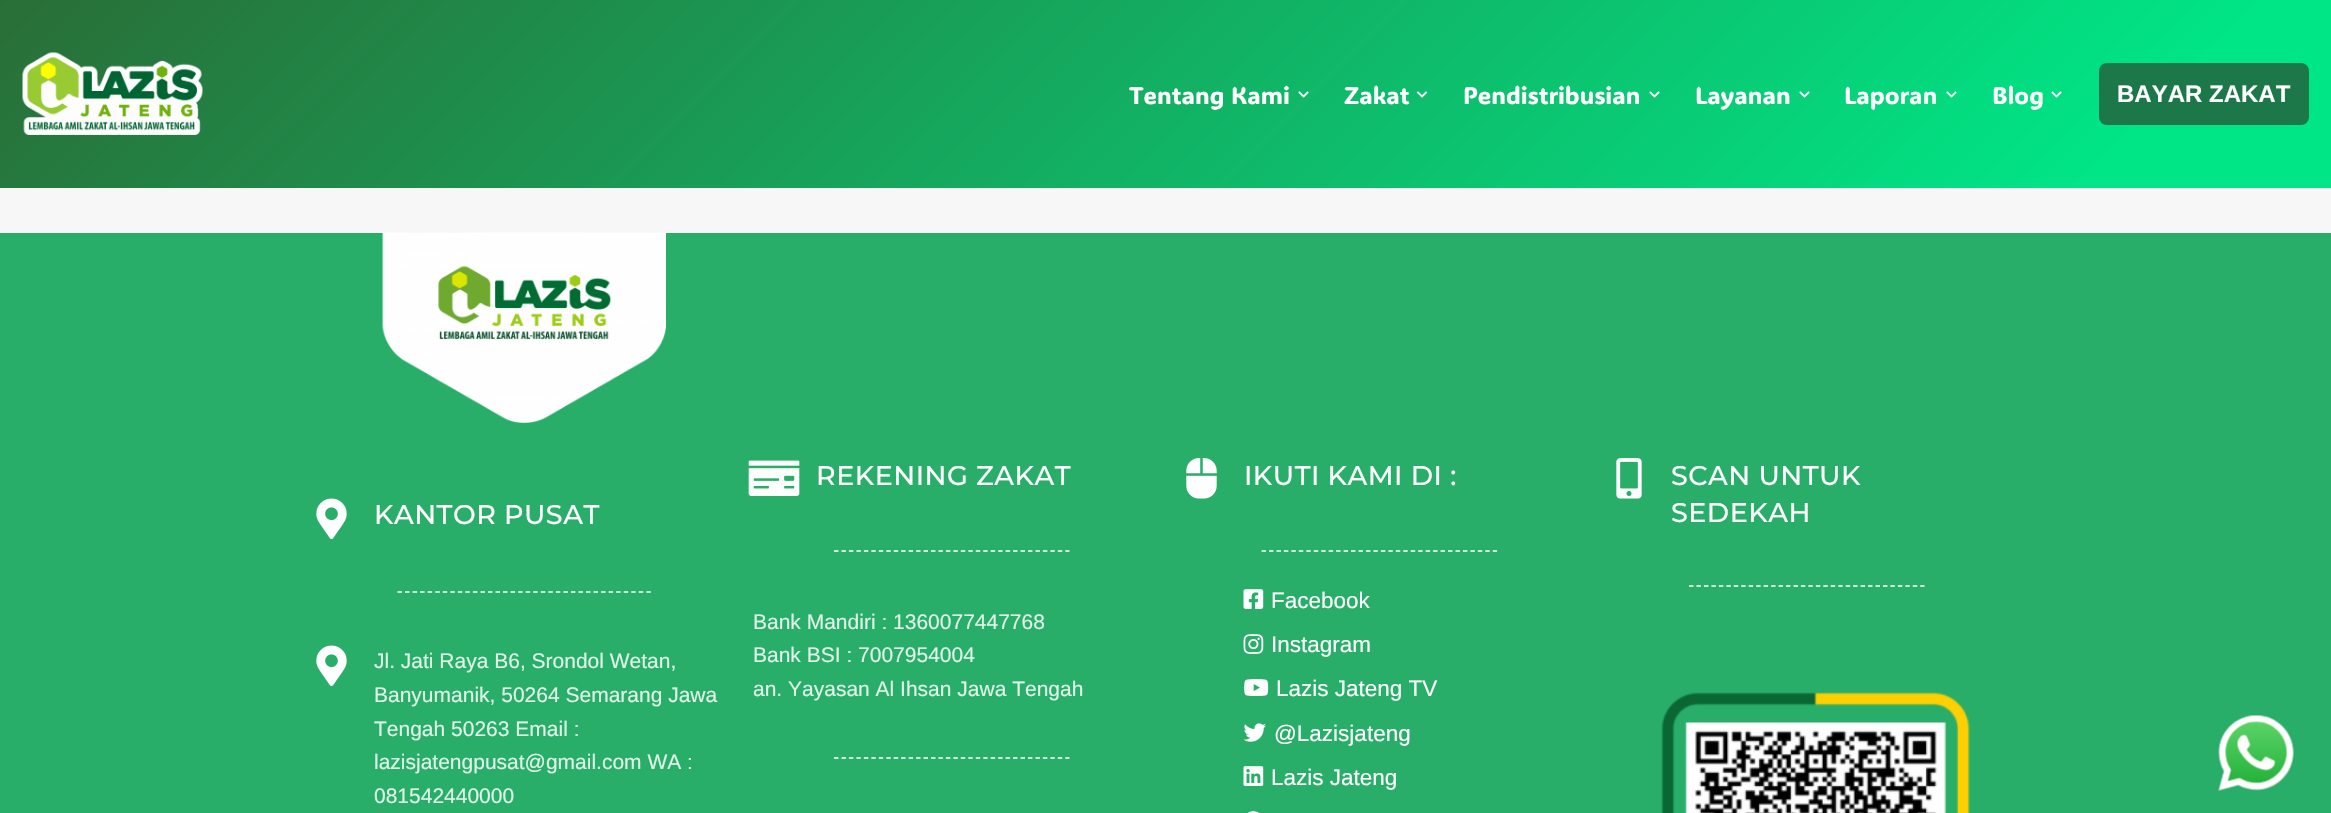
static SkFont makeFont(const char* family, int weight, float size, bool italic = false) {
  SkFontStyle style(weight, SkFontStyle::kNormal_Width,
    italic ? SkFontStyle::kItalic_Slant : SkFontStyle::kUpright_Slant);
  SkFont result(fontMgr->matchFamilyStyle(family, style), size);
  result.setSubpixel(true);
  return result;
}

static void text(SkCanvas* c, const char* s, float x, float y, const SkFont& font, SkColor color) {
  SkPaint ink(SkColor4f::FromColor(color));
  ink.setAntiAlias(true);
  c->drawString(s, x, y, font, ink);
}

static void spacedText(SkCanvas* c, const char* s, float x, float y, const SkFont& font, const SkPaint& ink, float letter, float word) {
  std::vector<SkGlyphID> glyphs(font.countText(s, strlen(s), SkTextEncoding::kUTF8));
  std::vector<float> xs(glyphs.size());
  font.textToGlyphs(s, strlen(s), SkTextEncoding::kUTF8, glyphs);
  font.getXPos(glyphs, xs, x);
  float extra = 0;
  for (size_t i = 0; i < glyphs.size(); i++) {
    xs[i] += extra;
    extra += letter + word * (glyphs[i] == font.unicharToGlyph(' '));
  }
  c->drawTextBlob(SkTextBlob::MakeFromPosHGlyphs(glyphs, xs, y, font), 0, 0, ink);
}

static void box(SkCanvas* c, float l, float t, float r, float b, SkColor color) {
  SkPaint ink(SkColor4f::FromColor(color));
  ink.setAntiAlias(true);
  c->drawRect(SkRect::MakeLTRB(l, t, r, b), ink);
}

static void roundBox(SkCanvas* c, float l, float t, float r, float b, float radius, SkColor color) {
  SkPaint ink(SkColor4f::FromColor(color));
  ink.setAntiAlias(true);
  c->drawRoundRect(SkRect::MakeLTRB(l, t, r, b), radius, radius, ink);
}

static void picture(SkCanvas* c, const char* path, float l, float t, float r, float b) {
  auto image = SkImages::DeferredFromEncodedData(SkData::MakeFromFileName(path));
  c->drawImageRect(image, SkRect::MakeLTRB(l, t, r, b), SkSamplingOptions());
}

void draw(SkCanvas* c) {
  SkPaint paint;
  paint.setAntiAlias(true);
  c->clear(0xfff7f7f7);
  {
    const SkColor colors[] = {0xff296e37, 0xff00e586};
    const float stops[] = {0, 0.9f};
    const SkPoint ends[] = {{536, -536}, {1795, 723}};
    paint.setShader(SkGradientShader::MakeLinear(ends, colors, stops, 2, SkTileMode::kClamp));
    paint.setAlpha(255);
  }
  c->drawRect(SkRect::MakeLTRB(0, 0, 2331, 188), paint);
  picture(c, "img_01.png", 22, 52, 203, 135);
  SkFont face1 = makeFont("ADLaM Display", 400, 24);
  text(c, "Tentang Kami", 1129, 104, face1, 0xfffefefe);
  picture(c, "img_02.png", 1298, 91, 1309, 98);
  text(c, "Zakat", 1344, 104, face1, 0xfffefefe);
  picture(c, "img_03.png", 1416, 91, 1428, 98);
  text(c, "Pendistribusian", 1463, 104, face1, 0xfffefefe);
  picture(c, "img_04.png", 1649, 91, 1660, 98);
  text(c, "Layanan", 1695, 104, face1, 0xfffefefe);
  picture(c, "img_05.png", 1799, 91, 1810, 98);
  text(c, "Laporan", 1844, 104, face1, 0xfffefefe);
  picture(c, "img_06.png", 1946, 91, 1957, 98);
  text(c, "Blog", 1992, 104, face1, 0xfffefefe);
  picture(c, "img_07.png", 2051, 91, 2062, 98);
  roundBox(c, 2099, 63, 2309, 125, 8, 0xff1d7849);
  SkFont face2 = makeFont("Liberation Sans", 700, 24);
  text(c, "BAYAR ZAKAT", 2117, 102, face2, 0xfffefefe);
  box(c, 0, 233, 2331, 813, 0xff28ae69);
  picture(c, "img_08.png", 382, 232, 666, 423);
  picture(c, "img_09.png", 316, 498, 347, 539);
  SkFont face3 = makeFont("Montserrat", 500, 27);
  paint.setShader(nullptr);
  paint.setColor(0xfffefefe);
  spacedText(c, "KANTOR PUSAT", 374, 524, face3, paint, 0.5f, 0);
  paint.setStyle(SkPaint::kStroke_Style);
  paint.setStrokeWidth(1.5f);
  paint.setColor(0xffffffff);
  paint.setPathEffect(SkDashPathEffect::Make({{4.5f, 3.04f}}, 0));
  c->drawPath(SkPathBuilder().moveTo(397.5f, 592).lineTo(651, 592).detach(), paint);
  paint.setPathEffect(nullptr);
  picture(c, "img_09.png", 316, 645, 347, 686);
  SkFont face4 = makeFont("Liberation Sans", 400, 21);
  text(c, "Jl. Jati Raya B6, Srondol Wetan,", 374, 668, face4, 0xffe1f4ea);
  text(c, "Banyumanik, 50264 Semarang Jawa", 374, 702, face4, 0xffe1f4ea);
  text(c, "Tengah 50263 Email :", 374, 736, face4, 0xffe1f4ea);
  text(c, "lazisjatengpusat@gmail.com WA :", 374, 769, face4, 0xffe1f4ea);
  text(c, "081542440000", 374, 803, face4, 0xffe1f4ea);
  picture(c, "img_10.png", 748, 460, 800, 496);
  paint.setStyle(SkPaint::kFill_Style);
  paint.setColor(0xfffefefe);
  spacedText(c, "REKENING ZAKAT", 816, 485, face3, paint, 0.5f, 0);
  paint.setStyle(SkPaint::kStroke_Style);
  paint.setColor(0xffffffff);
  paint.setPathEffect(SkDashPathEffect::Make({{4.5f, 2.96f}}, 0));
  c->drawPath(SkPathBuilder().moveTo(834, 551).lineTo(1069.5f, 551).detach(), paint);
  paint.setPathEffect(nullptr);
  text(c, "Bank Mandiri : 1360077447768", 753, 629, face4, 0xffe1f4ea);
  text(c, "Bank BSI : 7007954004", 753, 662, face4, 0xffe1f4ea);
  text(c, "an. Yayasan Al Ihsan Jawa Tengah", 753, 696, face4, 0xffe1f4ea);
  paint.setPathEffect(SkDashPathEffect::Make({{4.5f, 2.96f}}, 0));
  c->drawPath(SkPathBuilder().moveTo(834, 758).lineTo(1069.5f, 758).detach(), paint);
  paint.setPathEffect(nullptr);
  picture(c, "img_11.png", 1186, 458, 1217, 499);
  paint.setStyle(SkPaint::kFill_Style);
  paint.setColor(0xfffefefe);
  spacedText(c, "IKUTI KAMI DI :", 1244, 485, face3, paint, 0.5f, 0);
  paint.setStyle(SkPaint::kStroke_Style);
  paint.setColor(0xffffffff);
  paint.setPathEffect(SkDashPathEffect::Make({{4.5f, 2.96f}}, 0));
  c->drawPath(SkPathBuilder().moveTo(1261.5f, 551).lineTo(1497, 551).detach(), paint);
  paint.setPathEffect(nullptr);
  picture(c, "img_12.png", 1243, 589, 1264, 609);
  SkFont face5 = makeFont("Liberation Sans", 400, 22.5f);
  text(c, "Facebook", 1271, 608, face5, 0xfffefefe);
  picture(c, "img_13.png", 1243, 634, 1264, 654);
  text(c, "Instagram", 1271, 652, face5, 0xfffefefe);
  picture(c, "img_14.png", 1244, 679, 1269, 696);
  text(c, "Lazis Jateng TV", 1276, 696, face5, 0xfffefefe);
  picture(c, "img_15.png", 1243, 723, 1266, 742);
  text(c, "@Lazisjateng", 1274, 741, face5, 0xfffefefe);
  picture(c, "img_16.png", 1243, 766, 1264, 786);
  text(c, "Lazis Jateng", 1271, 785, face5, 0xfffefefe);
  picture(c, "img_17.png", 1247, 811, 1259, 813);
  picture(c, "img_18.png", 1616, 458, 1642, 499);
  paint.setStyle(SkPaint::kFill_Style);
  paint.setColor(0xfffefefe);
  spacedText(c, "SCAN UNTUK", 1671, 485, face3, paint, 0.5f, 0);
  spacedText(c, "SEDEKAH", 1671, 522, face3, paint, 0.5f, 0);
  paint.setStyle(SkPaint::kStroke_Style);
  paint.setColor(0xffffffff);
  paint.setPathEffect(SkDashPathEffect::Make({{4.5f, 2.96f}}, 0));
  c->drawPath(SkPathBuilder().moveTo(1689, 586).lineTo(1924.5f, 586).detach(), paint);
  paint.setPathEffect(nullptr);
  picture(c, "img_19.png", 1661, 692, 1970, 813);
  picture(c, "img_20.png", 2218, 715, 2294, 791);
}
